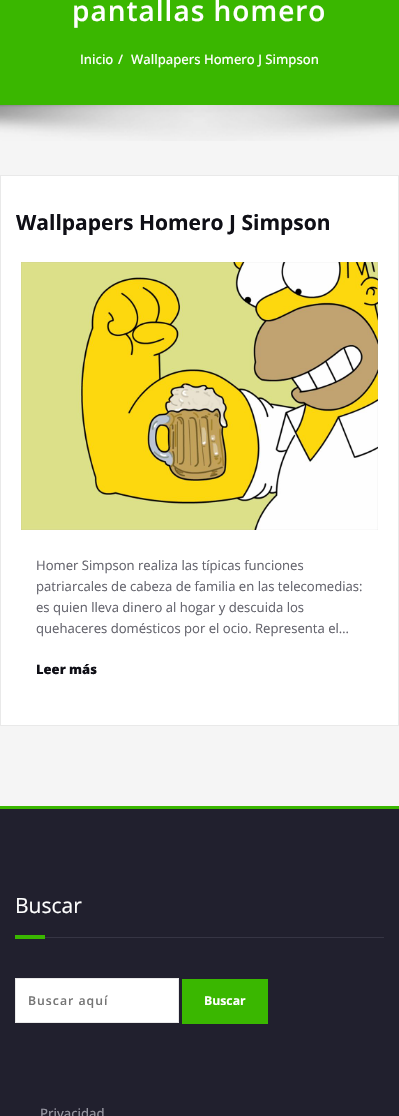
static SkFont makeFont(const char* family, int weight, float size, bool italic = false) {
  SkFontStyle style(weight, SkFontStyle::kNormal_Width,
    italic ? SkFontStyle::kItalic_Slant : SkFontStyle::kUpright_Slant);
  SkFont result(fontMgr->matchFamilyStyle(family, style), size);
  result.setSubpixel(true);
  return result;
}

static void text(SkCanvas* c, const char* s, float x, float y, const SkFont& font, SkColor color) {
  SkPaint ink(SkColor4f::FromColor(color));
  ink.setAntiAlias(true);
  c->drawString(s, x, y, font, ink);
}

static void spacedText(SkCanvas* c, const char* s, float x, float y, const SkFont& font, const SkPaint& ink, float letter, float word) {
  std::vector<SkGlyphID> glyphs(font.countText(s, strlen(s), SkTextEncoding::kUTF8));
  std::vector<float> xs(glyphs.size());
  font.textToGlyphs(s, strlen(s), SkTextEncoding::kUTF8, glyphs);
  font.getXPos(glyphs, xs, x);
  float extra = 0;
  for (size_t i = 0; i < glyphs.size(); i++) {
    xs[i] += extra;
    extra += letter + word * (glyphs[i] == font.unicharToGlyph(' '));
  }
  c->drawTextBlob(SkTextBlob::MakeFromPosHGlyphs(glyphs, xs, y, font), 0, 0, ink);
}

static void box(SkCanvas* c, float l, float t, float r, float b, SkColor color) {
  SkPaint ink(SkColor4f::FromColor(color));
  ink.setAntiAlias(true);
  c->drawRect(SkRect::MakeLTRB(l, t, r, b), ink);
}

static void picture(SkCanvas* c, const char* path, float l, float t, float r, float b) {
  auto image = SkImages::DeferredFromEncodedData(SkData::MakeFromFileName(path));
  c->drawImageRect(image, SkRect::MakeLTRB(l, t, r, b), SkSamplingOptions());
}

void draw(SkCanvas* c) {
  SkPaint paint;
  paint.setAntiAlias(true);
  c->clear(0xfff5f5f5);
  box(c, 0, 0, 399, 105, 0xff3ab700);
  SkFont face1 = makeFont("Open Sans", 600, 28);
  paint.setColor(0xffffffff);
  spacedText(c, "pantallas homero", 72, 21, face1, paint, 1, 0);
  SkFont face2 = makeFont("Open Sans", 500, 13.1f);
  text(c, "Inicio", 80, 64, face2, 0xffffffff);
  text(c, "/", 118, 64, face2, 0xffffffff);
  text(c, "Wallpapers Homero J Simpson", 131, 64, face2, 0xffffffff);
  picture(c, "img_01.png", 0, 105, 399, 141);
  c->drawRect(SkRect::MakeLTRB(0.5f, 175.5f, 398.5f, 725.5f), paint);
  paint.setStyle(SkPaint::kStroke_Style);
  paint.setStrokeWidth(1);
  paint.setColor(0xffe9e9e9);
  c->drawRect(SkRect::MakeLTRB(0.5f, 175.5f, 398.5f, 725.5f), paint);
  SkFont face3 = makeFont("Open Sans", 700, 21);
  text(c, "Wallpapers Homero J Simpson", 16, 230, face3, 0xff0f0f16);
  picture(c, "img_02.png", 21, 262, 378, 530);
  SkFont face4 = makeFont("Open Sans", 400, 13.1f);
  text(c, "Homer Simpson realiza las típicas funciones", 36, 570, face4, 0xff64646d);
  text(c, "patriarcales de cabeza de familia en las telecomedias:", 36, 591, face4, 0xff64646d);
  text(c, "es quien lleva dinero al hogar y descuida los", 36, 612, face4, 0xff64646d);
  text(c, "quehaceres domésticos por el ocio. Representa el…", 36, 633, face4, 0xff64646d);
  SkFont face5 = makeFont("Open Sans", 800, 13);
  text(c, "Leer más", 36, 674, face5, 0xff0f0f16);
  box(c, 0, 809, 399, 1116, 0xff21202e);
  box(c, 0, 806, 399, 809, 0xff3ab700);
  box(c, 45, 937, 384, 938, 0xff363544);
  SkFont face6 = makeFont("Open Sans", 400, 21);
  text(c, "Buscar", 15, 913, face6, 0xffffffff);
  box(c, 15, 935, 45, 939, 0xff3ab700);
  paint.setStyle(SkPaint::kFill_Style);
  paint.setColor(0xffffffff);
  c->drawRect(SkRect::MakeLTRB(15.5f, 978.5f, 178.5f, 1022.5f), paint);
  paint.setStyle(SkPaint::kStroke_Style);
  paint.setColor(0xffe9e9e9);
  c->drawRect(SkRect::MakeLTRB(15.5f, 978.5f, 178.5f, 1022.5f), paint);
  SkFont face7 = makeFont("Open Sans", 600, 12.25f);
  paint.setStyle(SkPaint::kFill_Style);
  paint.setColor(0xff757575);
  spacedText(c, "Buscar aquí", 28, 1005, face7, paint, 1, 0);
  box(c, 182, 979, 268, 1024, 0xff3ab700);
  SkFont face8 = makeFont("Open Sans", 700, 12.25f);
  text(c, "Buscar", 204, 1005, face8, 0xffffffff);
  text(c, "Privacidad", 40, 1118, face2, 0xff9595a0);
}
